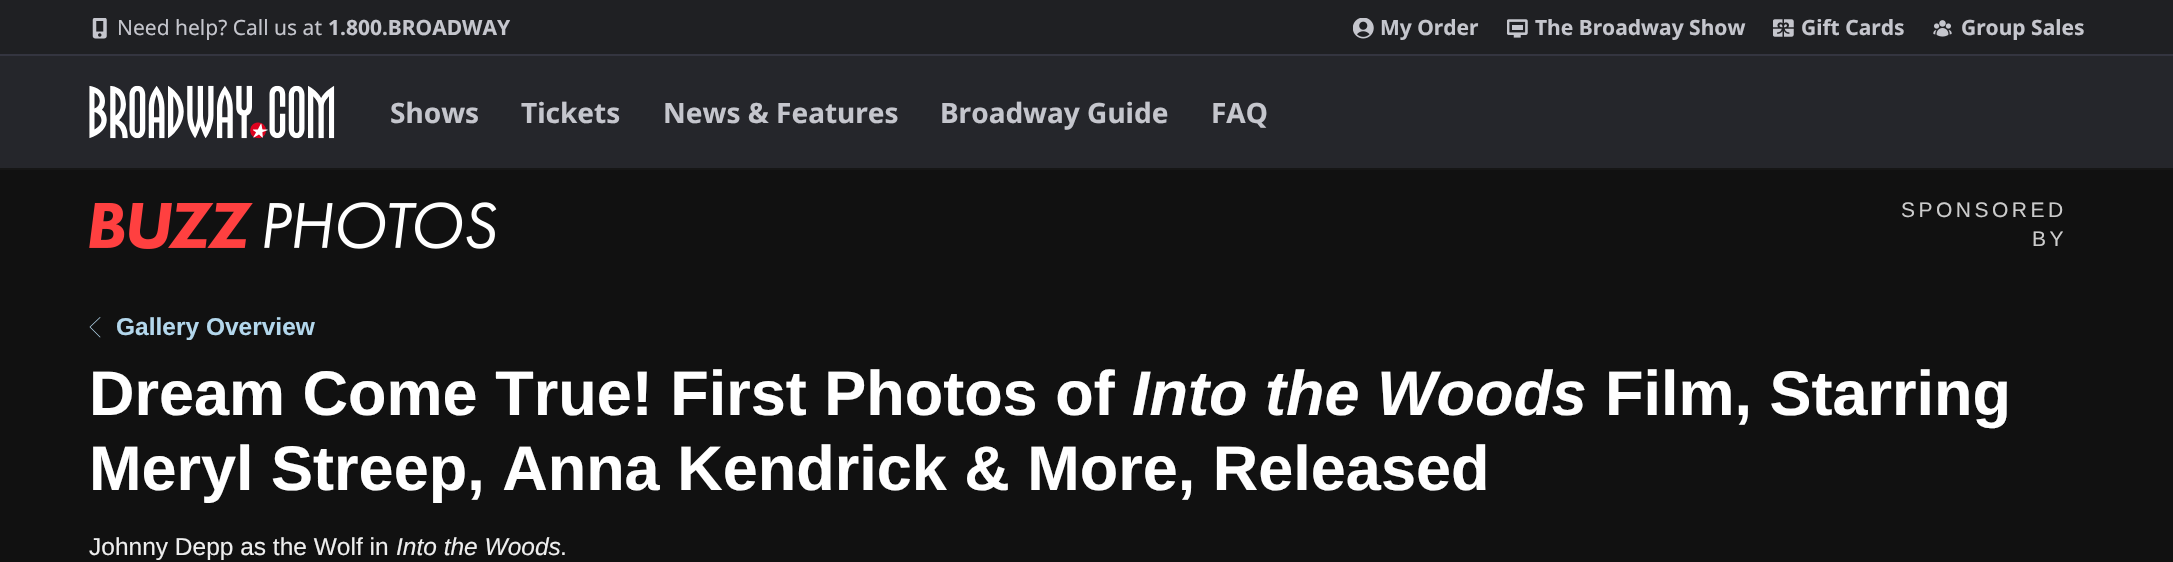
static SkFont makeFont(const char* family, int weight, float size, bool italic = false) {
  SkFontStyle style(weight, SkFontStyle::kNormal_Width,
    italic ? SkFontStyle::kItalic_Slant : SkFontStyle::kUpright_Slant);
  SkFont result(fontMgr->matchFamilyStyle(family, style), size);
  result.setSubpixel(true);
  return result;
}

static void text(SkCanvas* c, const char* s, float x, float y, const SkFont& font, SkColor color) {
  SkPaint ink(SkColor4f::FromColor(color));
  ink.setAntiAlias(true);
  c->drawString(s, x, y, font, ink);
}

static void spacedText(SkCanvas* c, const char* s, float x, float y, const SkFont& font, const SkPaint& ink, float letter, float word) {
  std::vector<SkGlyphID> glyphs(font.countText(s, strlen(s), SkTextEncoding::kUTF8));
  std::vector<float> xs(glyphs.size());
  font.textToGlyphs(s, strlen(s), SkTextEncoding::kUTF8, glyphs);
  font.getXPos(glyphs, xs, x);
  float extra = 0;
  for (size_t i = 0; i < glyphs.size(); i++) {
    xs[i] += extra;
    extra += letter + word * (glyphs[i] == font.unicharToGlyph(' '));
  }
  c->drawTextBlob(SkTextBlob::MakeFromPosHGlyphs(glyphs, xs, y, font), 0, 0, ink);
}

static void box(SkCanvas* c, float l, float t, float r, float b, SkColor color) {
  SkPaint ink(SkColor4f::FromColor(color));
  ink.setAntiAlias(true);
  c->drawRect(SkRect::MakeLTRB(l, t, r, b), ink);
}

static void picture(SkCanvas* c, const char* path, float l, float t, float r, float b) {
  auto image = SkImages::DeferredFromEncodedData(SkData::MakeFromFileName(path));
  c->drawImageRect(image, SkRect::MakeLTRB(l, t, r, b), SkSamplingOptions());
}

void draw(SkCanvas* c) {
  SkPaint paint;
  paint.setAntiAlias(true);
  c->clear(0xff111111);
  box(c, 0, 56, 2173, 168, 0xff25262b);
  box(c, 0, 0, 2173, 54, 0xff1f2023);
  box(c, 0, 54, 2173, 56, 0xff343540);
  picture(c, "img_01.png", 92, 18, 107, 39);
  SkFont face1 = makeFont("Noto Sans", 400, 21);
  text(c, "Need help? Call us at", 117, 35, face1, 0xffc5c6cd);
  SkFont face2 = makeFont("Noto Sans", 700, 21);
  text(c, "1.800.BROADWAY", 328, 35, face2, 0xffc5c6cd);
  picture(c, "img_02.png", 1353, 18, 1374, 39);
  text(c, "My Order", 1380, 35, face2, 0xffc5c6cd);
  picture(c, "img_03.png", 1507, 19, 1528, 38);
  text(c, "The Broadway Show", 1535, 35, face2, 0xffc5c6cd);
  picture(c, "img_04.png", 1773, 19, 1794, 37);
  text(c, "Gift Cards", 1801, 35, face2, 0xffc5c6cd);
  picture(c, "img_05.png", 1933, 20, 1952, 37);
  text(c, "Group Sales", 1961, 35, face2, 0xffc5c6cd);
  box(c, 0, 168, 2173, 170, 0xff161616);
  picture(c, "img_06.png", 89, 85, 335, 139);
  SkFont face3 = makeFont("Noto Sans", 700, 28);
  text(c, "Shows", 390, 123, face3, 0xffc5c6cd);
  text(c, "Tickets", 521, 123, face3, 0xffc5c6cd);
  text(c, "News & Features", 663, 123, face3, 0xffc5c6cd);
  text(c, "Broadway Guide", 940, 123, face3, 0xffc5c6cd);
  text(c, "FAQ", 1211, 123, face3, 0xffc5c6cd);
  picture(c, "img_07.png", 89, 202, 497, 249);
  SkFont face4 = makeFont("Liberation Sans", 400, 21);
  paint.setColor(0xffcccccc);
  spacedText(c, "SPONSORED", 1901, 217, face4, paint, 3.5f, 0);
  spacedText(c, "BY", 2032, 246, face4, paint, 3.5f, 0);
  SkFont face5 = makeFont("Liberation Sans", 700, 24.5f);
  text(c, "Gallery Overview", 116, 335, face5, 0xffb3d7ec);
  paint.setColor(0xffb3d7ec);
  c->drawPath(SkPathBuilder(SkPathFillType::kEvenOdd).moveTo(90, 326.5f).lineTo(89.5f, 327).lineTo(100, 337.5f).lineTo(100.5f, 337).lineTo(90.5f, 327).lineTo(100.5f, 317.5f).lineTo(100, 317).close().detach(), paint);
  SkFont face6 = makeFont("Liberation Sans", 700, 63);
  text(c, "Dream Come True! First Photos of", 89, 415, face6, 0xffffffff);
  SkFont face7 = makeFont("Liberation Sans", 700, 63, true);
  text(c, "Into the Woods", 1132, 415, face7, 0xffffffff);
  text(c, "Film, Starring", 1605, 415, face6, 0xffffffff);
  text(c, "Meryl Streep, Anna Kendrick & More, Released", 89, 490, face6, 0xffffffff);
  SkFont face8 = makeFont("Liberation Sans", 400, 24.5f);
  text(c, "Johnny Depp as the Wolf in", 89, 555, face8, 0xffeeeeee);
  SkFont face9 = makeFont("Liberation Sans", 400, 24.5f, true);
  text(c, "Into the Woods", 396, 555, face9, 0xffeeeeee);
  text(c, ".", 560, 555, face8, 0xffeeeeee);
}
